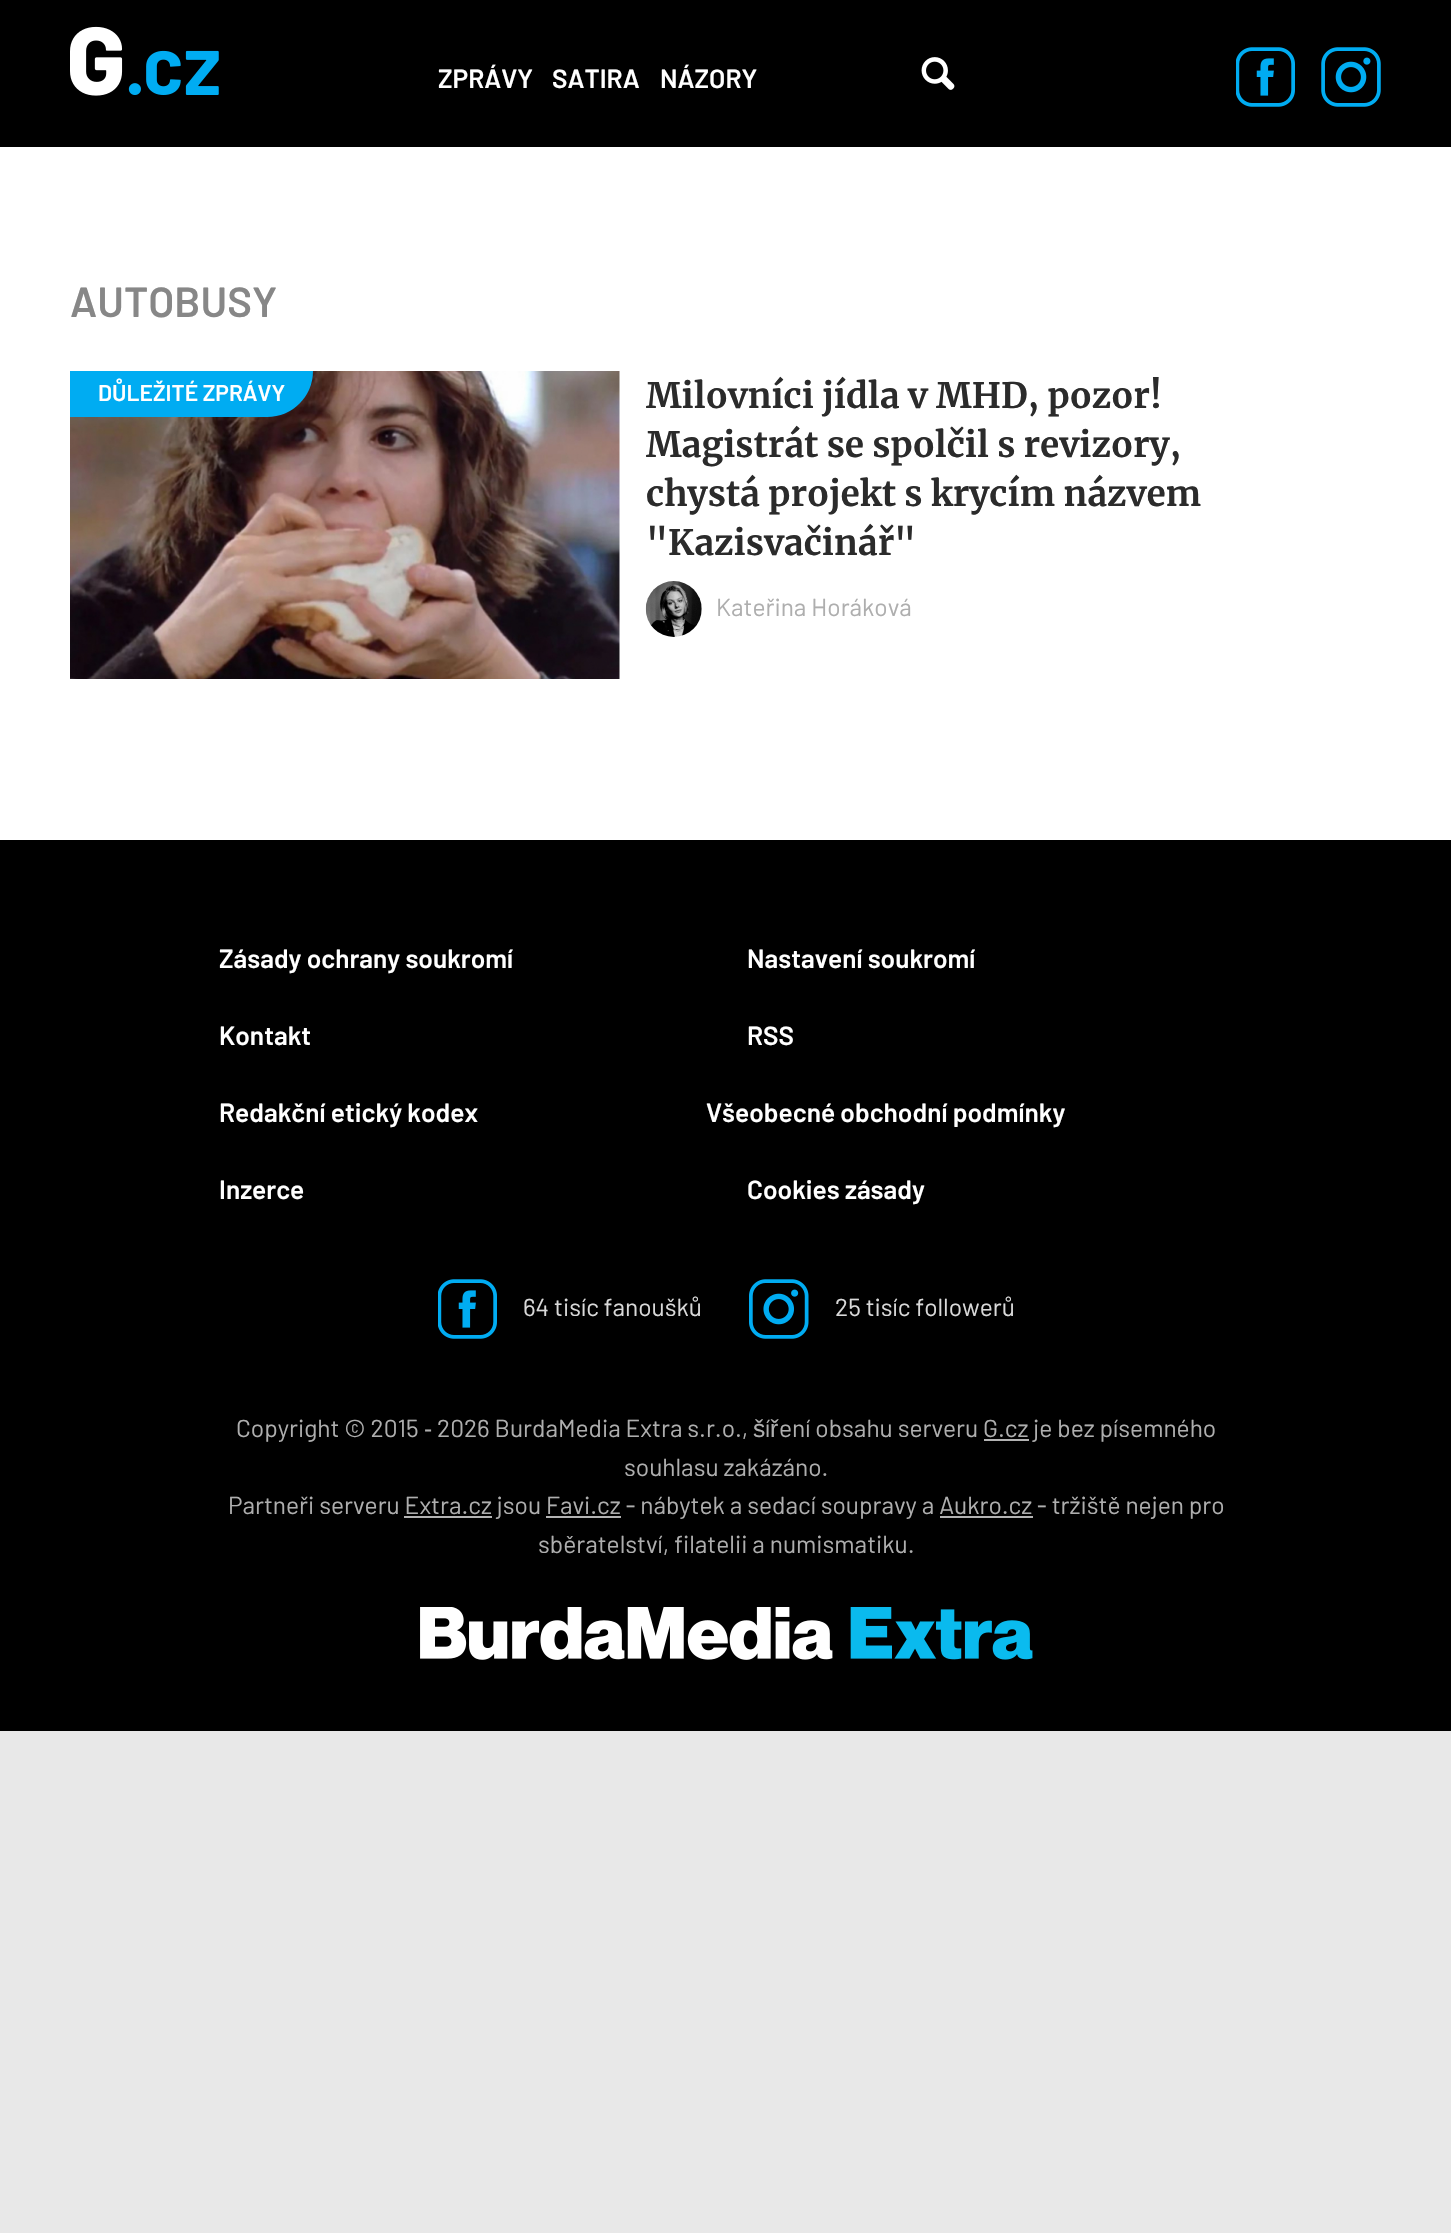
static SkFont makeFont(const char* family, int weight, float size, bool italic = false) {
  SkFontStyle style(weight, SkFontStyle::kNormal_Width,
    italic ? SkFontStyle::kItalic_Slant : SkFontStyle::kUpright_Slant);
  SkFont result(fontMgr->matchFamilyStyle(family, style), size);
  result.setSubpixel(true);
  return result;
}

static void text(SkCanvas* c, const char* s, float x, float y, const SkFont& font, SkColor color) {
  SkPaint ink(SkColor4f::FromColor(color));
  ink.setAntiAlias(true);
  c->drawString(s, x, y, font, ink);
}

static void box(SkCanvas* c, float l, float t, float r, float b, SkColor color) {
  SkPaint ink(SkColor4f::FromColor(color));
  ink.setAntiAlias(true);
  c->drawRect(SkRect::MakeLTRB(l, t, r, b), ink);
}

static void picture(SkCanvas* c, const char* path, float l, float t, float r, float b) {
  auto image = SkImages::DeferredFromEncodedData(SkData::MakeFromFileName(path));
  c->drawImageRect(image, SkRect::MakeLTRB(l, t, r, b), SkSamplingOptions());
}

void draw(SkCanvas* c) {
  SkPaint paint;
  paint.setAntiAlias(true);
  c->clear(0xffe8e8e8);
  box(c, 0, 147, 1451, 840, 0xffffffff);
  box(c, 0, 0, 1451, 147, 0xff000000);
  picture(c, "img_01.png", 70, 26, 219, 96);
  SkFont face1 = makeFont("Barlow", 600, 26.25f);
  text(c, "ZPRÁVY", 438, 88, face1, 0xffffffff);
  text(c, "SATIRA", 552, 88, face1, 0xffffffff);
  text(c, "NÁZORY", 660, 88, face1, 0xffffffff);
  picture(c, "img_02.png", 921, 57, 955, 90);
  picture(c, "img_03.png", 1236, 47, 1295, 107);
  picture(c, "img_04.png", 1321, 47, 1381, 107);
  SkFont face2 = makeFont("Barlow", 600, 42);
  text(c, "AUTOBUSY", 70, 317, face2, 0xff878787);
  picture(c, "img_05.png", 70, 371, 620, 679);
  paint.setColor(0xff00acf2);
  c->drawPath(SkPathBuilder().moveTo(70, 371).lineTo(313, 371).cubicTo(313, 396.5f, 292.5f, 417, 267, 417).lineTo(70, 417).close().detach(), paint);
  SkFont face3 = makeFont("Barlow", 600, 22.75f);
  text(c, "DŮLEŽITÉ ZPRÁVY", 98, 401, face3, 0xffffffff);
  SkFont face4 = makeFont("Merriweather", 700, 35);
  text(c, "Milovníci jídla v MHD, pozor!", 646, 408, face4, 0xff2b2b2b);
  text(c, "Magistrát se spolčil s revizory,", 646, 457, face4, 0xff2b2b2b);
  text(c, "chystá projekt s krycím názvem", 646, 506, face4, 0xff2b2b2b);
  text(c, "\"Kazisvačinář\"", 646, 555, face4, 0xff2b2b2b);
  picture(c, "img_06.png", 645, 581, 702, 637);
  SkFont face5 = makeFont("Barlow", 400, 24.5f);
  text(c, "Kateřina Horáková", 716, 616, face5, 0xffaeaeae);
  box(c, 0, 840, 1451, 1731, 0xff000000);
  text(c, "Zásady ochrany soukromí", 219, 968, face1, 0xffffffff);
  text(c, "Nastavení soukromí", 747, 968, face1, 0xffffffff);
  text(c, "Kontakt", 219, 1045, face1, 0xffffffff);
  text(c, "RSS", 747, 1045, face1, 0xffffffff);
  text(c, "Redakční etický kodex", 219, 1122, face1, 0xffffffff);
  text(c, "Všeobecné obchodní podmínky", 706, 1122, face1, 0xffffffff);
  text(c, "Inzerce", 219, 1199, face1, 0xffffffff);
  text(c, "Cookies zásady", 747, 1199, face1, 0xffffffff);
  picture(c, "img_03.png", 438, 1279, 497, 1339);
  text(c, "64 tisíc fanoušků", 523, 1316, face5, 0xffd9d9d9);
  picture(c, "img_07.png", 749, 1279, 809, 1339);
  text(c, "25 tisíc followerů", 835, 1316, face5, 0xffd9d9d9);
  text(c, "Copyright © 2015", 236, 1437, face5, 0xffaeaeae);
  SkFont face6 = makeFont("Liberation Sans", 400, 24.5f);
  text(c, "‐", 424, 1437, face6, 0xffaeaeae);
  text(c, "2026 BurdaMedia Extra s.r.o.,", 437, 1437, face5, 0xffaeaeae);
  text(c, "š", 753, 1437, face6, 0xffaeaeae);
  text(c, "í", 765, 1437, face5, 0xffaeaeae);
  text(c, "ř", 770, 1437, face6, 0xffaeaeae);
  text(c, "ení obsahu serveru", 779, 1437, face5, 0xffaeaeae);
  box(c, 984, 1439, 1029, 1441, 0xffb3b3b3);
  text(c, "G.cz je bez písemného", 983, 1437, face5, 0xffaeaeae);
  text(c, "souhlasu zakázáno.", 624, 1476, face5, 0xffaeaeae);
  text(c, "Partneři serveru Extra.cz jsou Favi.cz - nábytek a sedací soupravy a Aukro.cz - tržiště nejen pro", 228, 1514, face5, 0xffaeaeae);
  box(c, 404, 1516, 492, 1518, 0xffb3b3b3);
  box(c, 546, 1516, 621, 1518, 0xffb3b3b3);
  box(c, 940, 1516, 1033, 1518, 0xffb3b3b3);
  text(c, "sběratelství, filatelii a numismatiku.", 538, 1553, face5, 0xffaeaeae);
  picture(c, "img_08.png", 420, 1607, 1033, 1660);
}
